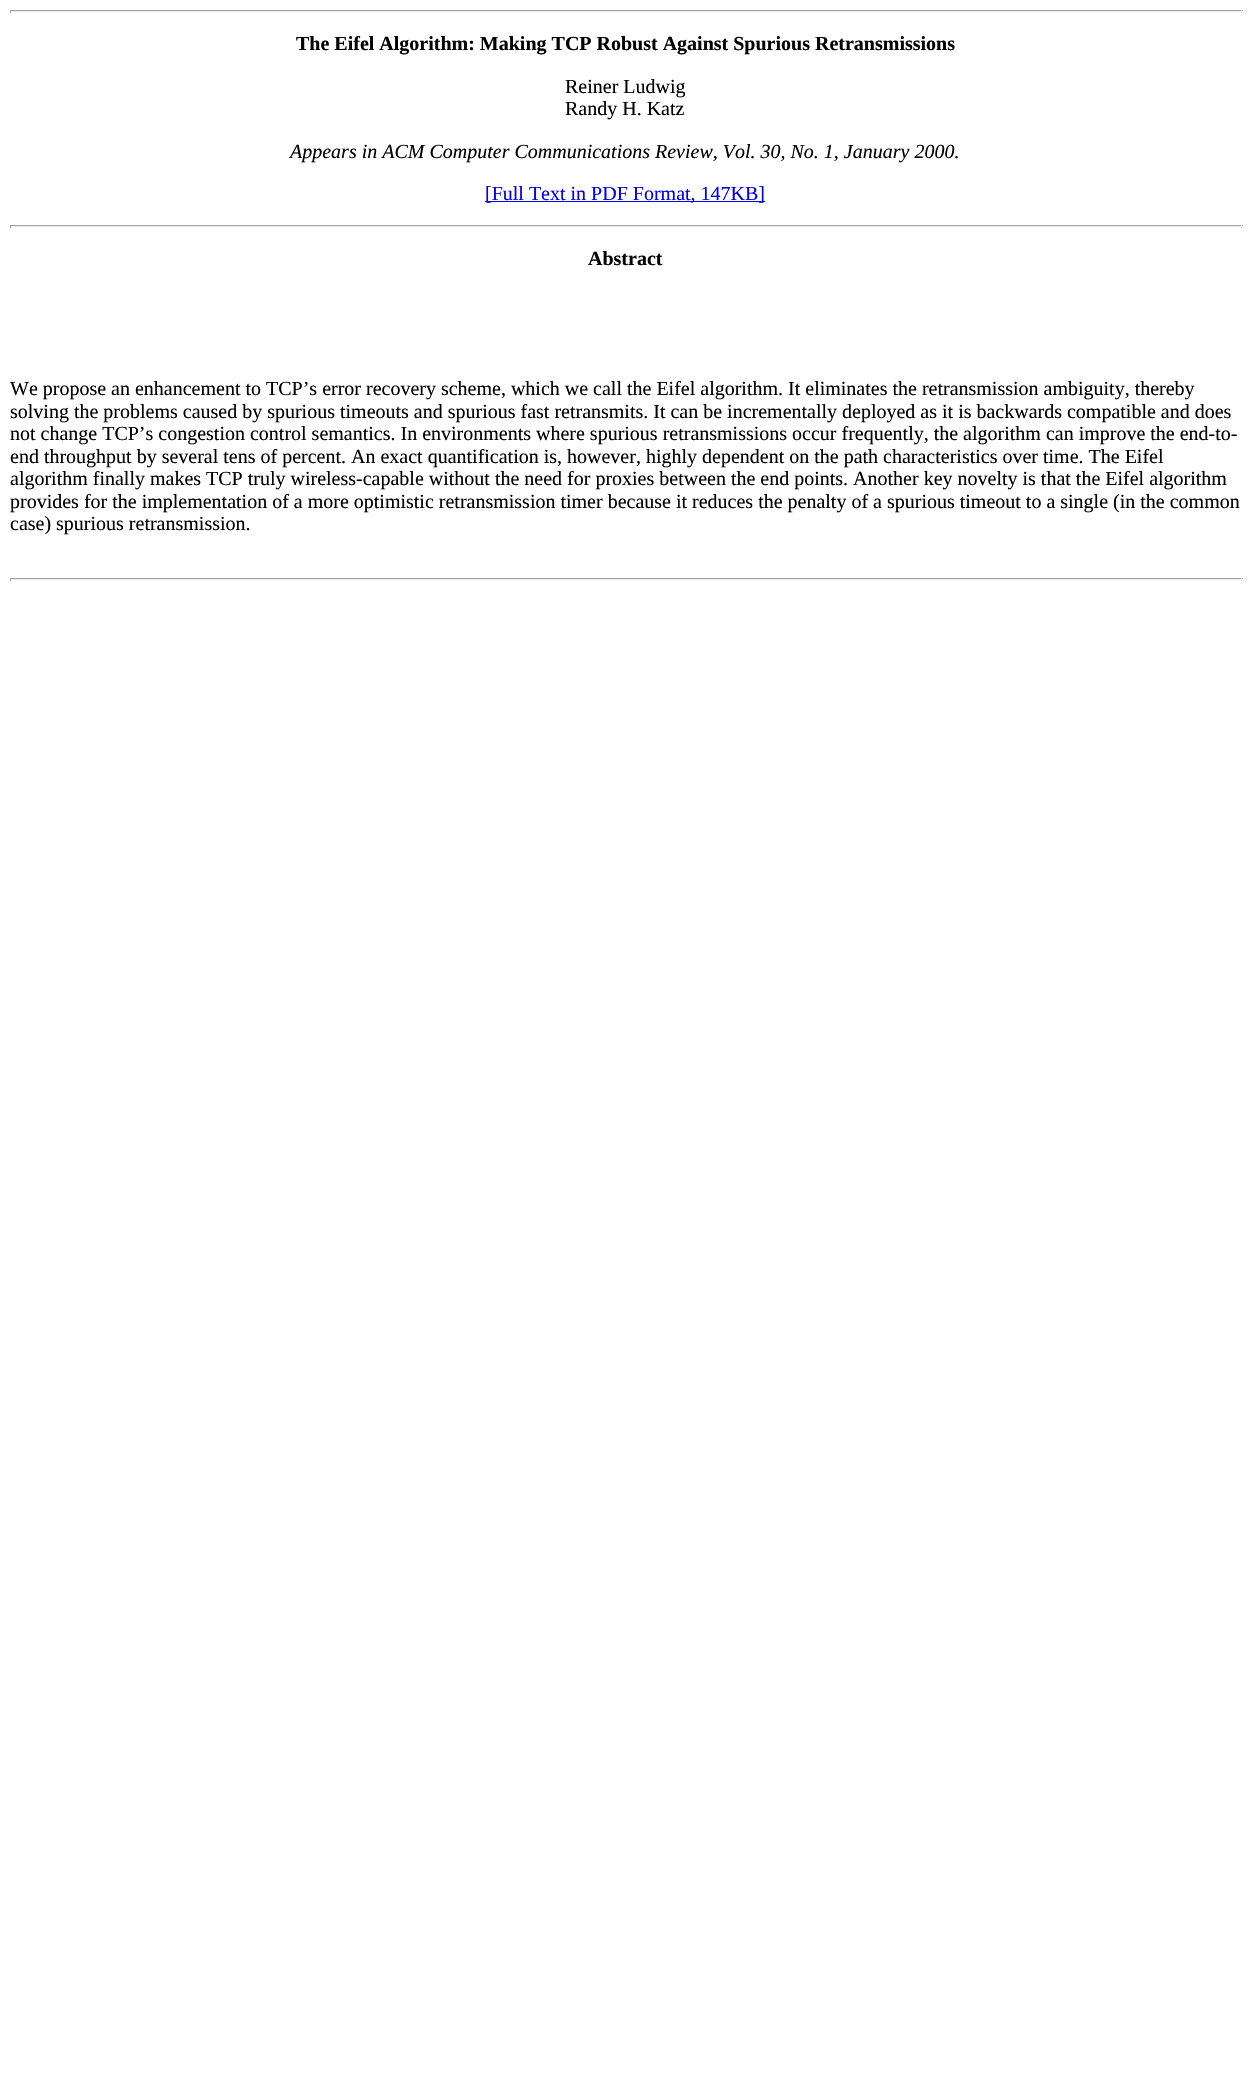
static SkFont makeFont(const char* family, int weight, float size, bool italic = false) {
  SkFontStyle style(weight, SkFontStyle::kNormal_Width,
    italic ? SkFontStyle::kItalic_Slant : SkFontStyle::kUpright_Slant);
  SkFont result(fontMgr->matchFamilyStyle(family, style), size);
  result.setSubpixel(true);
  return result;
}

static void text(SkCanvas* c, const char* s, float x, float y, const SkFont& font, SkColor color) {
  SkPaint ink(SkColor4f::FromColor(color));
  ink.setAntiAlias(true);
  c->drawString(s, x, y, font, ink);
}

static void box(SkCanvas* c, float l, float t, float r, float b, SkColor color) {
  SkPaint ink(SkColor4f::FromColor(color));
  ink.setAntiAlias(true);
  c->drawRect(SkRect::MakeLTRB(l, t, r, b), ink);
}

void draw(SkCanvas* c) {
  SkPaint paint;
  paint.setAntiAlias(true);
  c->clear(0xffffffff);
  box(c, 10, 10, 1243, 11, 0xff9f9f9f);
  box(c, 1241, 10, 1242, 13, 0xffeeeeee);
  box(c, 10, 11, 1243, 12, 0xffeeeeee);
  box(c, 10, 10, 11, 13, 0xff9f9f9f);
  SkFont face1 = makeFont("Liberation Serif", 700, 20);
  text(c, "The Eifel Algorithm: Making TCP Robust Against Spurious Retransmissions", 296, 50, face1, 0xff000000);
  SkFont face2 = makeFont("Liberation Serif", 400, 20);
  text(c, "Reiner Ludwig", 565, 93, face2, 0xff000000);
  text(c, "Randy H. Katz", 565, 115, face2, 0xff000000);
  SkFont face3 = makeFont("Liberation Serif", 400, 20, true);
  text(c, "Appears in ACM Computer Communications Review, Vol. 30, No. 1, January 2000.", 290, 158, face3, 0xff000000);
  box(c, 485, 201, 765, 202, 0xff0000ef);
  text(c, "[Full Text in PDF Format, 147KB]", 485, 200, face2, 0xff0000ef);
  box(c, 10, 225, 1243, 226, 0xff9f9f9f);
  box(c, 1241, 225, 1242, 228, 0xffeeeeee);
  box(c, 10, 226, 1243, 227, 0xffeeeeee);
  box(c, 10, 225, 11, 228, 0xff9f9f9f);
  text(c, "Abstract", 588, 265, face1, 0xff000000);
  text(c, "We propose an enhancement to TCP’s error recovery scheme, which we call the Eifel algorithm. It eliminates the retransmission ambiguity, thereby", 10, 395, face2, 0xff000000);
  text(c, "solving the problems caused by spurious timeouts and spurious fast retransmits. It can be incrementally deployed as it is backwards compatible and does", 10, 418, face2, 0xff000000);
  text(c, "not change TCP’s congestion control semantics. In environments where spurious retransmissions occur frequently, the algorithm can improve the end-to-", 10, 440, face2, 0xff000000);
  text(c, "end throughput by several tens of percent. An exact quantification is, however, highly dependent on the path characteristics over time. The Eifel", 10, 463, face2, 0xff000000);
  text(c, "algorithm finally makes TCP truly wireless-capable without the need for proxies between the end points. Another key novelty is that the Eifel algorithm", 10, 485, face2, 0xff000000);
  text(c, "provides for the implementation of a more optimistic retransmission timer because it reduces the penalty of a spurious timeout to a single (in the common", 10, 508, face2, 0xff000000);
  text(c, "case) spurious retransmission.", 10, 530, face2, 0xff000000);
  box(c, 10, 578, 1243, 579, 0xff9f9f9f);
  box(c, 1241, 578, 1242, 581, 0xffeeeeee);
  box(c, 10, 579, 1243, 580, 0xffeeeeee);
  box(c, 10, 578, 11, 581, 0xff9f9f9f);
}
